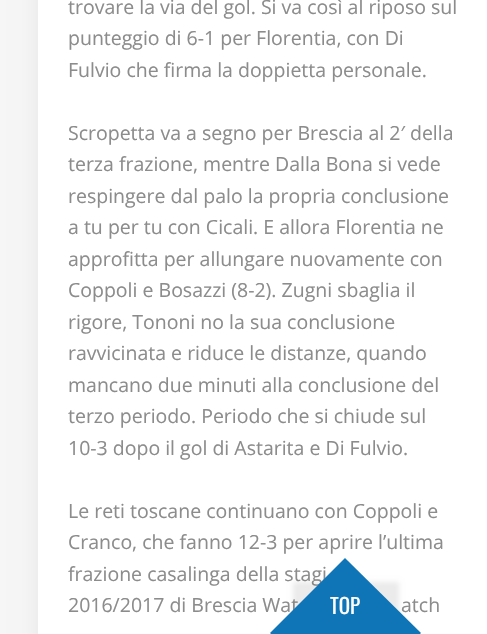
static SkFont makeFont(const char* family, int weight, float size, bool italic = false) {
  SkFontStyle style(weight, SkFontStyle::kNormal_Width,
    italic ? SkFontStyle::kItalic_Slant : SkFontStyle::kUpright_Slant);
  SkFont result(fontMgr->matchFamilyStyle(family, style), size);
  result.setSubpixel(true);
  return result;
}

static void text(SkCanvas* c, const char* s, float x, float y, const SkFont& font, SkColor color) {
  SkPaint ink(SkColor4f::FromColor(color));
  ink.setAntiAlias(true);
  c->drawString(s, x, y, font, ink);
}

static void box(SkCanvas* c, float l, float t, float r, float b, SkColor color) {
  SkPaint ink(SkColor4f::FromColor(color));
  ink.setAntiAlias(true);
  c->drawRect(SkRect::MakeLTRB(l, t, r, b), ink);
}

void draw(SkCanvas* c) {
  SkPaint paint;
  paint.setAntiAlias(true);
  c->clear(0xfff6f6f6);
  paint.setColor(0xffe5e5e5);
  paint.setMaskFilter(SkMaskFilter::MakeBlur(kNormal_SkBlurStyle, 11));
  c->drawRect(SkRect::MakeLTRB(39, -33, 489, 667), paint);
  paint.setMaskFilter(nullptr);
  box(c, 38, 0, 487, 634, 0xffffffff);
  SkFont face1 = makeFont("Open Sans", 400, 19.5f);
  text(c, "trovare la via del gol. Si va così al riposo sul", 68, 14, face1, 0xff8d8c8c);
  text(c, "punteggio di 6-1 per Florentia, con Di", 68, 45, face1, 0xff8d8c8c);
  text(c, "Fulvio che firma la doppietta personale.", 68, 77, face1, 0xff8d8c8c);
  text(c, "Scropetta va a segno per Brescia al 2′ della", 68, 140, face1, 0xff8d8c8c);
  text(c, "terza frazione, mentre Dalla Bona si vede", 68, 171, face1, 0xff8d8c8c);
  text(c, "respingere dal palo la propria conclusione", 68, 203, face1, 0xff8d8c8c);
  text(c, "a tu per tu con Cicali. E allora Florentia ne", 68, 234, face1, 0xff8d8c8c);
  text(c, "approfitta per allungare nuovamente con", 68, 266, face1, 0xff8d8c8c);
  text(c, "Coppoli e Bosazzi (8-2). Zugni sbaglia il", 68, 297, face1, 0xff8d8c8c);
  text(c, "rigore, Tononi no la sua conclusione", 68, 329, face1, 0xff8d8c8c);
  text(c, "ravvicinata e riduce le distanze, quando", 68, 360, face1, 0xff8d8c8c);
  text(c, "mancano due minuti alla conclusione del", 68, 392, face1, 0xff8d8c8c);
  text(c, "terzo periodo. Periodo che si chiude sul", 68, 423, face1, 0xff8d8c8c);
  text(c, "10-3 dopo il gol di Astarita e Di Fulvio.", 68, 455, face1, 0xff8d8c8c);
  text(c, "Le reti toscane continuano con Coppoli e", 68, 518, face1, 0xff8d8c8c);
  text(c, "Cranco, che fanno 12-3 per aprire l’ultima", 68, 549, face1, 0xff8d8c8c);
  text(c, "frazione casalinga della stagi", 68, 581, face1, 0xff8d8c8c);
  text(c, "2016/2017 di Brescia Wat", 68, 612, face1, 0xff8d8c8c);
  text(c, "atch", 401, 612, face1, 0xff8d8c8c);
  paint.setColor(0x14000000);
  paint.setMaskFilter(SkMaskFilter::MakeBlur(kNormal_SkBlurStyle, 2.5f));
  c->drawRect(SkRect::MakeLTRB(293, 582, 399, 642), paint);
  paint.setMaskFilter(nullptr);
  paint.setColor(0xff0f75b7);
  c->drawPath(SkPathBuilder().moveTo(345, 558).lineTo(421, 633).lineTo(345, 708).lineTo(270, 633).close().detach(), paint);
  SkFont face2 = makeFont("Oswald", 400, 21);
  text(c, "TOP", 330, 614, face2, 0xffffffff);
}
